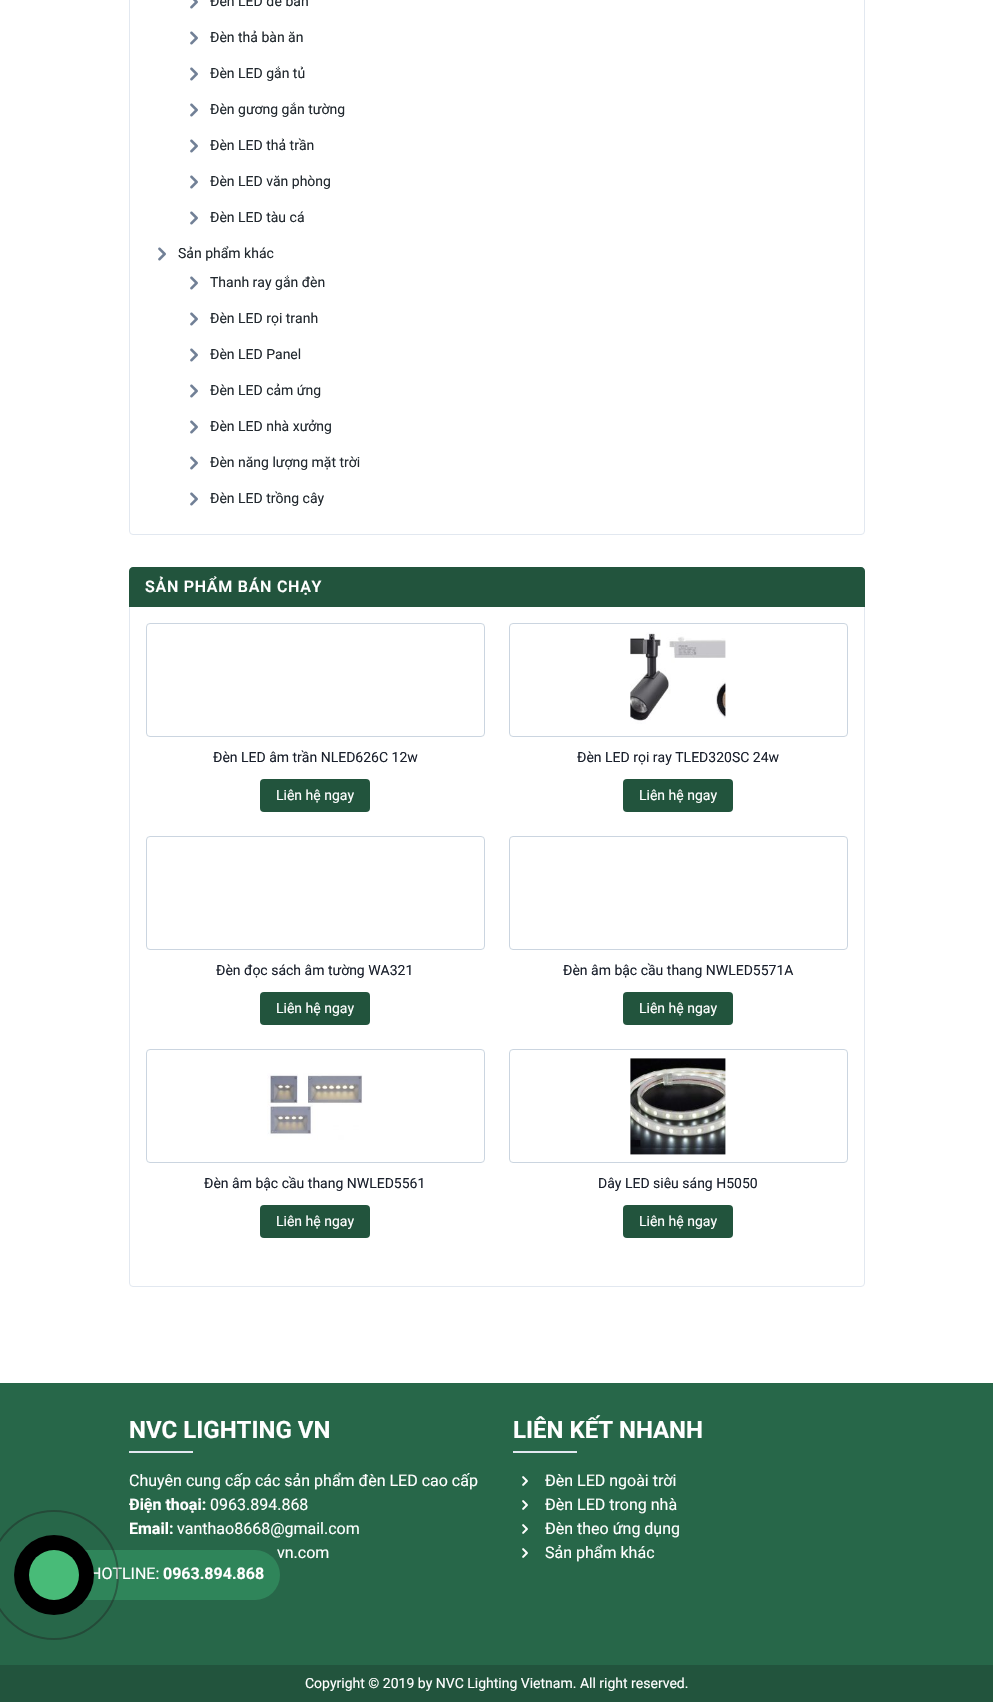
static SkFont makeFont(const char* family, int weight, float size, bool italic = false) {
  SkFontStyle style(weight, SkFontStyle::kNormal_Width,
    italic ? SkFontStyle::kItalic_Slant : SkFontStyle::kUpright_Slant);
  SkFont result(fontMgr->matchFamilyStyle(family, style), size);
  result.setSubpixel(true);
  return result;
}

static void text(SkCanvas* c, const char* s, float x, float y, const SkFont& font, SkColor color) {
  SkPaint ink(SkColor4f::FromColor(color));
  ink.setAntiAlias(true);
  c->drawString(s, x, y, font, ink);
}

static void spacedText(SkCanvas* c, const char* s, float x, float y, const SkFont& font, const SkPaint& ink, float letter, float word) {
  std::vector<SkGlyphID> glyphs(font.countText(s, strlen(s), SkTextEncoding::kUTF8));
  std::vector<float> xs(glyphs.size());
  font.textToGlyphs(s, strlen(s), SkTextEncoding::kUTF8, glyphs);
  font.getXPos(glyphs, xs, x);
  float extra = 0;
  for (size_t i = 0; i < glyphs.size(); i++) {
    xs[i] += extra;
    extra += letter + word * (glyphs[i] == font.unicharToGlyph(' '));
  }
  c->drawTextBlob(SkTextBlob::MakeFromPosHGlyphs(glyphs, xs, y, font), 0, 0, ink);
}

static void box(SkCanvas* c, float l, float t, float r, float b, SkColor color) {
  SkPaint ink(SkColor4f::FromColor(color));
  ink.setAntiAlias(true);
  c->drawRect(SkRect::MakeLTRB(l, t, r, b), ink);
}

static void roundBox(SkCanvas* c, float l, float t, float r, float b, float radius, SkColor color) {
  SkPaint ink(SkColor4f::FromColor(color));
  ink.setAntiAlias(true);
  c->drawRoundRect(SkRect::MakeLTRB(l, t, r, b), radius, radius, ink);
}

static void picture(SkCanvas* c, const char* path, float l, float t, float r, float b) {
  auto image = SkImages::DeferredFromEncodedData(SkData::MakeFromFileName(path));
  c->drawImageRect(image, SkRect::MakeLTRB(l, t, r, b), SkSamplingOptions());
}

void draw(SkCanvas* c) {
  SkPaint paint;
  paint.setAntiAlias(true);
  c->clear(0xffffffff);
  paint.setStyle(SkPaint::kStroke_Style);
  paint.setStrokeWidth(1);
  paint.setColor(0xffe2e8f0);
  c->drawRoundRect(SkRect::MakeLTRB(129.5f, -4.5f, 864.5f, 534.5f), 3.5f, 3.5f, paint);
  picture(c, "img_01.png", 190, 0, 198, 9);
  SkFont face1 = makeFont("Roboto", 400, 14);
  text(c, "Đèn LED để bàn", 210, 6, face1, 0xff22292f);
  picture(c, "img_02.png", 190, 31, 198, 45);
  text(c, "Đèn thả bàn ăn", 210, 42, face1, 0xff22292f);
  picture(c, "img_02.png", 190, 67, 198, 81);
  text(c, "Đèn LED gắn tủ", 210, 78, face1, 0xff22292f);
  picture(c, "img_02.png", 190, 103, 198, 117);
  text(c, "Đèn gương gắn tường", 210, 114, face1, 0xff22292f);
  picture(c, "img_02.png", 190, 139, 198, 153);
  text(c, "Đèn LED thả trần", 210, 150, face1, 0xff22292f);
  picture(c, "img_02.png", 190, 175, 198, 189);
  text(c, "Đèn LED văn phòng", 210, 186, face1, 0xff22292f);
  picture(c, "img_02.png", 190, 211, 198, 225);
  text(c, "Đèn LED tàu cá", 210, 222, face1, 0xff22292f);
  picture(c, "img_02.png", 158, 247, 166, 261);
  text(c, "Sản phẩm khác", 178, 258, face1, 0xff22292f);
  picture(c, "img_02.png", 190, 276, 198, 290);
  text(c, "Thanh ray gắn đèn", 210, 287, face1, 0xff22292f);
  picture(c, "img_02.png", 190, 312, 198, 326);
  text(c, "Đèn LED rọi tranh", 210, 323, face1, 0xff22292f);
  picture(c, "img_02.png", 190, 348, 198, 362);
  text(c, "Đèn LED Panel", 210, 359, face1, 0xff22292f);
  picture(c, "img_02.png", 190, 384, 198, 398);
  text(c, "Đèn LED cảm ứng", 210, 395, face1, 0xff22292f);
  picture(c, "img_02.png", 190, 420, 198, 434);
  text(c, "Đèn LED nhà xưởng", 210, 431, face1, 0xff22292f);
  picture(c, "img_02.png", 190, 456, 198, 470);
  text(c, "Đèn năng lượng mặt trời", 210, 467, face1, 0xff22292f);
  picture(c, "img_02.png", 190, 492, 198, 506);
  text(c, "Đèn LED trồng cây", 210, 503, face1, 0xff22292f);
  c->drawRoundRect(SkRect::MakeLTRB(129.5f, 567.5f, 864.5f, 1286.5f), 3.5f, 3.5f, paint);
  paint.setStyle(SkPaint::kFill_Style);
  paint.setColor(0xff22543d);
  c->drawPath(SkPathBuilder().moveTo(133, 567).lineTo(861, 567).cubicTo(863, 567, 865, 569, 865, 571).lineTo(865, 607).lineTo(129, 607).lineTo(129, 571).cubicTo(129, 569, 131, 567, 133, 567).close().detach(), paint);
  SkFont face2 = makeFont("Roboto", 600, 16);
  paint.setColor(0xffffffff);
  spacedText(c, "SẢN PHẨM BÁN CHẠY", 145, 592, face2, paint, 0.75f, 0);
  paint.setStyle(SkPaint::kStroke_Style);
  paint.setColor(0xffcbd5e0);
  c->drawRoundRect(SkRect::MakeLTRB(146.5f, 623.5f, 484.5f, 736.5f), 3.5f, 3.5f, paint);
  text(c, "Đèn LED âm trần NLED626C 12w", 213, 762, face1, 0xff1a202c);
  roundBox(c, 260, 779, 370, 812, 4, 0xff22543d);
  text(c, "Liên hệ ngay", 276, 800, face1, 0xffffffff);
  c->drawRoundRect(SkRect::MakeLTRB(509.5f, 623.5f, 847.5f, 736.5f), 3.5f, 3.5f, paint);
  picture(c, "img_03.png", 630, 632, 726, 724);
  text(c, "Đèn LED rọi ray TLED320SC 24w", 577, 762, face1, 0xff1a202c);
  roundBox(c, 623, 779, 733, 812, 4, 0xff22543d);
  text(c, "Liên hệ ngay", 639, 800, face1, 0xffffffff);
  c->drawRoundRect(SkRect::MakeLTRB(146.5f, 836.5f, 484.5f, 949.5f), 3.5f, 3.5f, paint);
  text(c, "Đèn đọc sách âm tường WA321", 216, 975, face1, 0xff1a202c);
  roundBox(c, 260, 992, 370, 1025, 4, 0xff22543d);
  text(c, "Liên hệ ngay", 276, 1013, face1, 0xffffffff);
  c->drawRoundRect(SkRect::MakeLTRB(509.5f, 836.5f, 847.5f, 949.5f), 3.5f, 3.5f, paint);
  text(c, "Đèn âm bậc cầu thang NWLED5571A", 563, 975, face1, 0xff1a202c);
  roundBox(c, 623, 992, 733, 1025, 4, 0xff22543d);
  text(c, "Liên hệ ngay", 639, 1013, face1, 0xffffffff);
  c->drawRoundRect(SkRect::MakeLTRB(146.5f, 1049.5f, 484.5f, 1162.5f), 3.5f, 3.5f, paint);
  picture(c, "img_04.png", 267, 1073, 363, 1140);
  text(c, "Đèn âm bậc cầu thang NWLED5561", 204, 1188, face1, 0xff1a202c);
  roundBox(c, 260, 1205, 370, 1238, 4, 0xff22543d);
  text(c, "Liên hệ ngay", 276, 1226, face1, 0xffffffff);
  c->drawRoundRect(SkRect::MakeLTRB(509.5f, 1049.5f, 847.5f, 1162.5f), 3.5f, 3.5f, paint);
  picture(c, "img_05.png", 630, 1058, 726, 1155);
  text(c, "Dây LED siêu sáng H5050", 598, 1188, face1, 0xff1a202c);
  roundBox(c, 623, 1205, 733, 1238, 4, 0xff22543d);
  text(c, "Liên hệ ngay", 639, 1226, face1, 0xffffffff);
  box(c, 0, 1383, 993, 1665, 0xff276749);
  SkFont face3 = makeFont("Roboto", 700, 24);
  text(c, "NVC LIGHTING VN", 129, 1438, face3, 0xffffffff);
  box(c, 129, 1451, 193, 1453, 0xffe2e8f0);
  SkFont face4 = makeFont("Roboto", 400, 16);
  text(c, "Chuyên cung cấp các sản phẩm đèn LED cao cấp", 129, 1486, face4, 0xffffffff);
  SkFont face5 = makeFont("Roboto", 700, 16);
  text(c, "Điện thoại:", 129, 1510, face5, 0xffffffff);
  text(c, "0963.894.868", 210, 1510, face4, 0xffffffff);
  text(c, "Email:", 129, 1534, face5, 0xffffffff);
  text(c, "vanthao8668@gmail.com", 177, 1534, face4, 0xffffffff);
  text(c, "vn.com", 277, 1558, face4, 0xffffffff);
  text(c, "LIÊN KẾT NHANH", 513, 1438, face3, 0xffffffff);
  box(c, 513, 1451, 577, 1453, 0xffe2e8f0);
  picture(c, "img_06.png", 522, 1476, 528, 1486);
  text(c, "Đèn LED ngoài trời", 545, 1486, face4, 0xffffffff);
  picture(c, "img_06.png", 522, 1500, 528, 1510);
  text(c, "Đèn LED trong nhà", 545, 1510, face4, 0xffffffff);
  picture(c, "img_06.png", 522, 1524, 528, 1534);
  text(c, "Đèn theo ứng dụng", 545, 1534, face4, 0xffffffff);
  picture(c, "img_06.png", 522, 1548, 528, 1558);
  text(c, "Sản phẩm khác", 545, 1558, face4, 0xffffffff);
  box(c, 0, 1665, 993, 1702, 0xff22543d);
  text(c, "Copyright © 2019 by NVC Lighting Vietnam. All right reserved.", 305, 1688, face1, 0xffffffff);
  roundBox(c, 30, 1550, 280, 1600, 25, 0xff2f855a);
  text(c, "HOTLINE:", 90, 1579, face4, 0xffffffff);
  paint.setStrokeWidth(2);
  paint.setColor(0x661e1e1e);
  c->drawCircle(54, 1575, 64, paint);
  paint.setStyle(SkPaint::kFill_Style);
  paint.setColor(0xff000000);
  c->drawCircle(54, 1575, 40, paint);
  paint.setColor(0xff48bb78);
  c->drawCircle(54, 1575, 25, paint);
  text(c, "0963.894.868", 163, 1579, face5, 0xffffffff);
}
